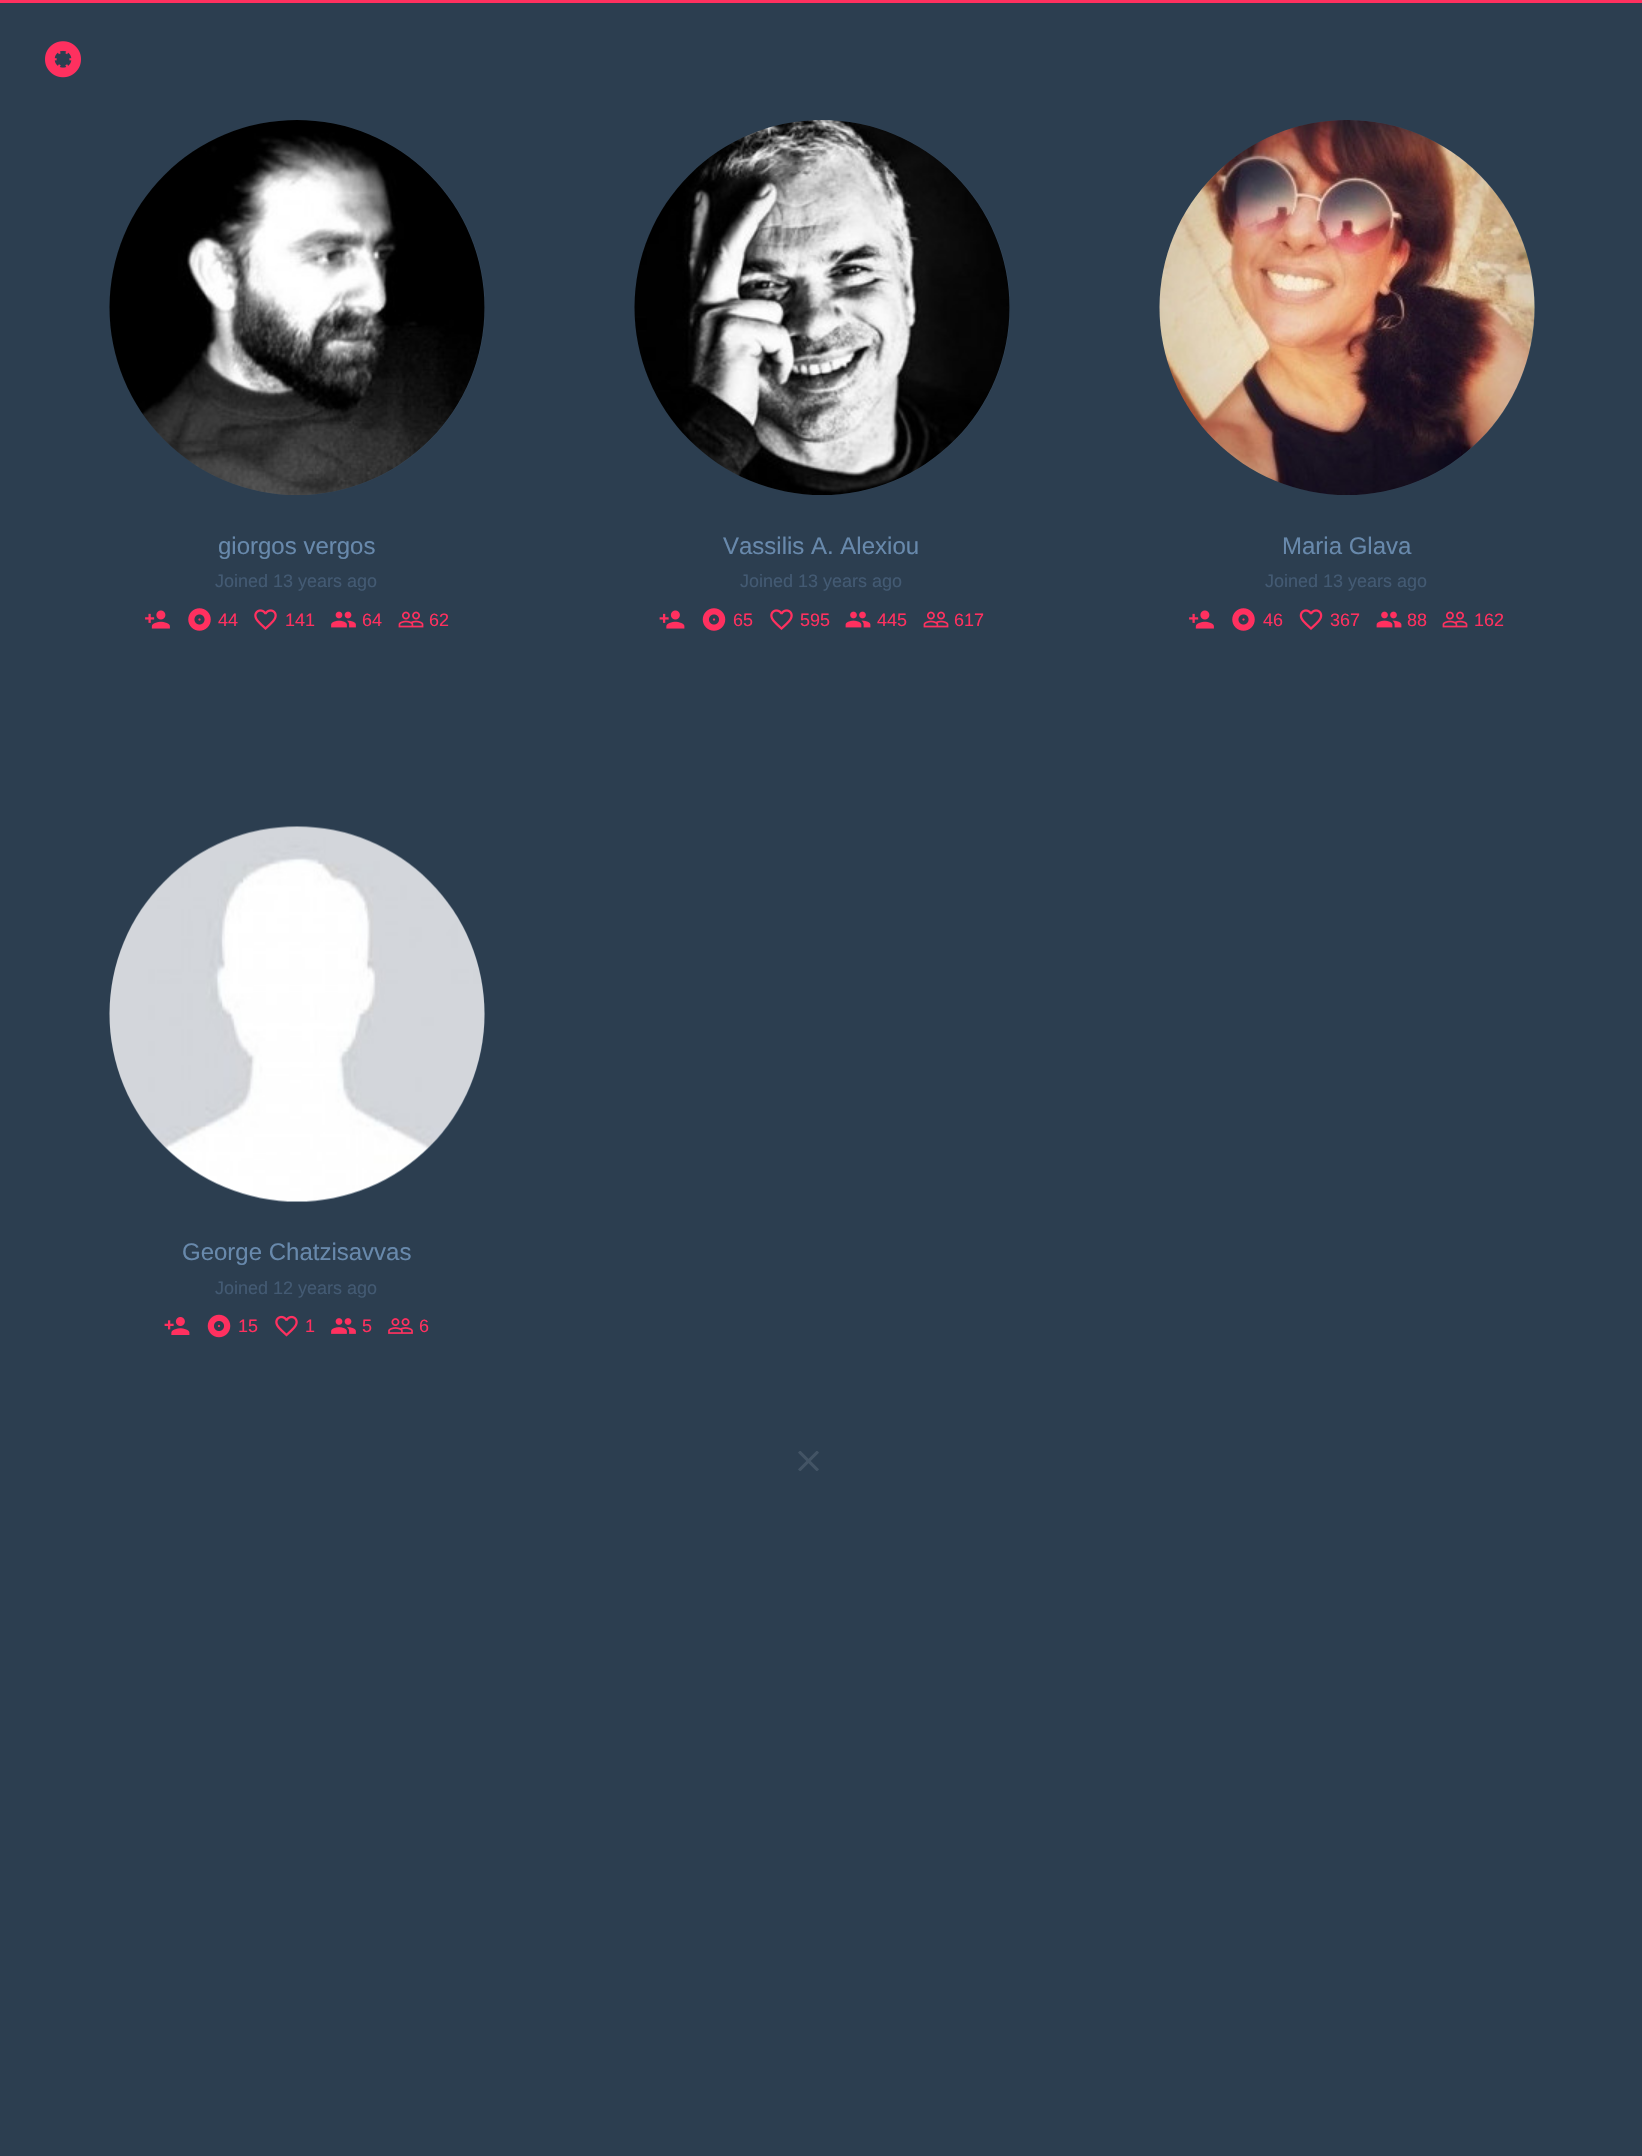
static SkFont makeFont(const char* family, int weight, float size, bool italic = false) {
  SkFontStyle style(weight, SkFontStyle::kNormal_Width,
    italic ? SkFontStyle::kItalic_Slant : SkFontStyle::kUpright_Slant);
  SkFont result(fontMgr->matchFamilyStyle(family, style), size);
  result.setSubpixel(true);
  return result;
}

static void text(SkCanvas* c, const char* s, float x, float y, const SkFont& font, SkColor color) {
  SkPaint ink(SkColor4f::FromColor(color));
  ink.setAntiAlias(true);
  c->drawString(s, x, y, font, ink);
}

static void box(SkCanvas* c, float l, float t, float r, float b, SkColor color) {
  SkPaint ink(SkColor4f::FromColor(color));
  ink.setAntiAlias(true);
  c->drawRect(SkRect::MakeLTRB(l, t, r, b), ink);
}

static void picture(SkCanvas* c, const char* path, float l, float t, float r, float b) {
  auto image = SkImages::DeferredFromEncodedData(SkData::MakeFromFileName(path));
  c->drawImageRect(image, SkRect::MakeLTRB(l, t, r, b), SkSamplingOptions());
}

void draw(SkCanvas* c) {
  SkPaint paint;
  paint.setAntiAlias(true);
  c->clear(0xff2c3e50);
  box(c, 0, 0, 1642, 3, 0xffff305f);
  picture(c, "img_01.png", 45, 41, 81, 78);
  paint.setColor(0xff34495e);
  c->drawCircle(297.5f, 307.5f, 187.5f, paint);
  picture(c, "img_02.png", 109, 120, 485, 495);
  SkFont face1 = makeFont("Liberation Sans", 400, 24);
  text(c, "giorgos vergos", 218, 554, face1, 0xff6889ac);
  SkFont face2 = makeFont("Liberation Sans", 400, 18);
  text(c, "Joined 13 years ago", 215, 587, face2, 0xff435a73);
  picture(c, "img_03.png", 145, 610, 170, 629);
  picture(c, "img_04.png", 188, 608, 211, 631);
  text(c, "44", 218, 626, face2, 0xffff305f);
  picture(c, "img_05.png", 254, 609, 277, 630);
  text(c, "141", 285, 626, face2, 0xffff305f);
  picture(c, "img_06.png", 331, 611, 356, 628);
  text(c, "64", 362, 626, face2, 0xffff305f);
  picture(c, "img_07.png", 398, 611, 424, 628);
  text(c, "62", 429, 626, face2, 0xffff305f);
  c->drawCircle(822.5f, 307.5f, 187.5f, paint);
  picture(c, "img_08.png", 634, 120, 1010, 495);
  text(c, "Vassilis A. Alexiou", 723, 554, face1, 0xff6889ac);
  text(c, "Joined 13 years ago", 740, 587, face2, 0xff435a73);
  picture(c, "img_09.png", 659, 610, 685, 629);
  picture(c, "img_10.png", 702, 608, 726, 631);
  text(c, "65", 733, 626, face2, 0xffff305f);
  picture(c, "img_05.png", 770, 609, 793, 630);
  text(c, "595", 800, 626, face2, 0xffff305f);
  picture(c, "img_11.png", 845, 611, 871, 628);
  text(c, "445", 877, 626, face2, 0xffff305f);
  picture(c, "img_07.png", 923, 611, 949, 628);
  text(c, "617", 954, 626, face2, 0xffff305f);
  c->drawCircle(1347.5f, 307.5f, 187.5f, paint);
  picture(c, "img_12.png", 1159, 120, 1535, 495);
  text(c, "Maria Glava", 1282, 554, face1, 0xff6889ac);
  text(c, "Joined 13 years ago", 1265, 587, face2, 0xff435a73);
  picture(c, "img_03.png", 1189, 610, 1214, 629);
  picture(c, "img_04.png", 1232, 608, 1255, 631);
  text(c, "46", 1263, 626, face2, 0xffff305f);
  picture(c, "img_13.png", 1299, 609, 1323, 630);
  text(c, "367", 1330, 626, face2, 0xffff305f);
  picture(c, "img_11.png", 1376, 611, 1402, 628);
  text(c, "88", 1407, 626, face2, 0xffff305f);
  picture(c, "img_07.png", 1442, 611, 1468, 628);
  text(c, "162", 1474, 626, face2, 0xffff305f);
  c->drawCircle(297.5f, 1014.5f, 187.5f, paint);
  picture(c, "img_14.png", 109, 826, 485, 1202);
  text(c, "George Chatzisavvas", 182, 1260, face1, 0xff6889ac);
  text(c, "Joined 12 years ago", 215, 1294, face2, 0xff435a73);
  picture(c, "img_15.png", 164, 1317, 190, 1335);
  picture(c, "img_16.png", 207, 1314, 231, 1338);
  text(c, "15", 238, 1332, face2, 0xffff305f);
  picture(c, "img_17.png", 275, 1315, 298, 1337);
  text(c, "1", 305, 1332, face2, 0xffff305f);
  picture(c, "img_18.png", 331, 1318, 356, 1334);
  text(c, "5", 362, 1332, face2, 0xffff305f);
  picture(c, "img_19.png", 388, 1318, 413, 1334);
  text(c, "6", 419, 1332, face2, 0xffff305f);
  picture(c, "img_20.png", 798, 1451, 819, 1471);
}
